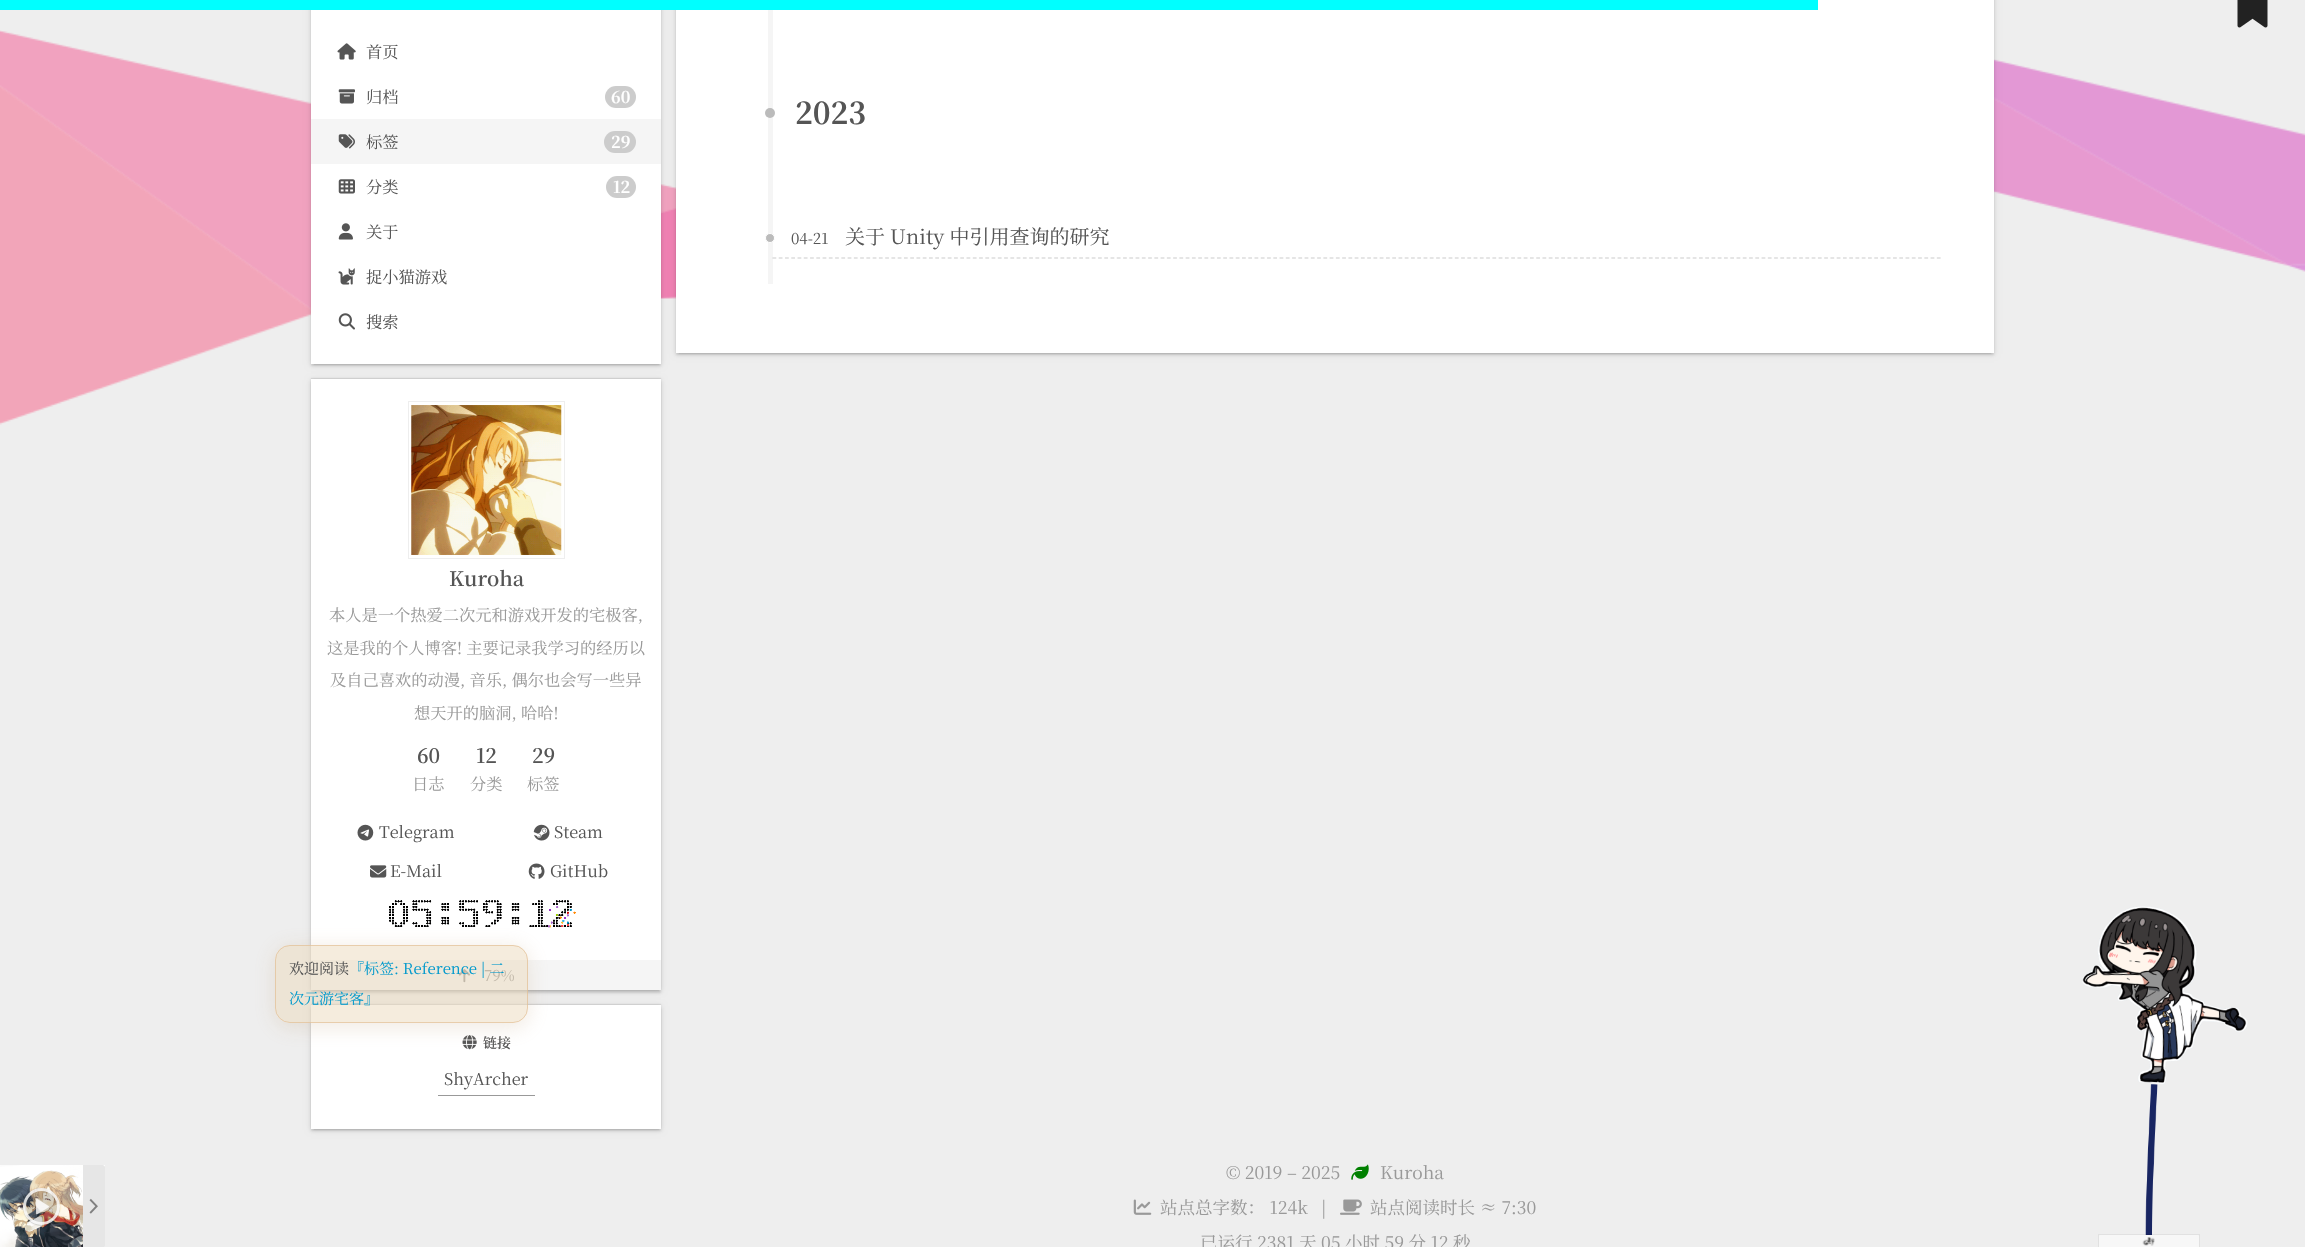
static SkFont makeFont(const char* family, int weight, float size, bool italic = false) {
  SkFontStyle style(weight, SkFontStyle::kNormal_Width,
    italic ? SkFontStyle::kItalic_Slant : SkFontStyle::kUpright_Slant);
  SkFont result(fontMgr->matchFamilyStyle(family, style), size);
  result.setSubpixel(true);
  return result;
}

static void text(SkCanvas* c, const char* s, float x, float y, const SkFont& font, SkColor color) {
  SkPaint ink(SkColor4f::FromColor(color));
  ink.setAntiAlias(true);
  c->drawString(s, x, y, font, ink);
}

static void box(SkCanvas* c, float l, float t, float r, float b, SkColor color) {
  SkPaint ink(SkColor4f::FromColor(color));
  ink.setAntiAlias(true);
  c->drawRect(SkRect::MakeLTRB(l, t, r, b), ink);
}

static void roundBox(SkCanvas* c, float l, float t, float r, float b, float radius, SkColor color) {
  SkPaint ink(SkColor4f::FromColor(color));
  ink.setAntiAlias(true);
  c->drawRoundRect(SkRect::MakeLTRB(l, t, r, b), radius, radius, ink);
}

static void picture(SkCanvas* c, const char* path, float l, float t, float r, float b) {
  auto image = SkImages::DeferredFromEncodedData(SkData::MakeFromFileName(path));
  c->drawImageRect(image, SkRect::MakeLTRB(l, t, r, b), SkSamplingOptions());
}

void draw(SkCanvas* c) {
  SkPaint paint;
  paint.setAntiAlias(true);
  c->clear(0xffeeeeee);
  picture(c, "img_02.png", 0, 30, 2305, 425);
  paint.setColor(0x1f000000);
  paint.setMaskFilter(SkMaskFilter::MakeBlur(kNormal_SkBlurStyle, 3));
  c->drawRect(SkRect::MakeLTRB(311, -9, 661, 365), paint);
  paint.setMaskFilter(nullptr);
  paint.setColor(0x0f000000);
  paint.setMaskFilter(SkMaskFilter::MakeBlur(kNormal_SkBlurStyle, 0.5f));
  c->drawRect(SkRect::MakeLTRB(314, -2, 659, 365), paint);
  paint.setMaskFilter(nullptr);
  paint.setColor(0x1f000000);
  paint.setMaskFilter(SkMaskFilter::MakeBlur(kNormal_SkBlurStyle, 1));
  c->drawRect(SkRect::MakeLTRB(311, -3, 661, 366), paint);
  paint.setMaskFilter(nullptr);
  paint.setMaskFilter(SkMaskFilter::MakeBlur(kNormal_SkBlurStyle, 3));
  c->drawRect(SkRect::MakeLTRB(676, -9, 1994, 354), paint);
  paint.setMaskFilter(nullptr);
  paint.setColor(0x0f000000);
  paint.setMaskFilter(SkMaskFilter::MakeBlur(kNormal_SkBlurStyle, 0.5f));
  c->drawRect(SkRect::MakeLTRB(679, -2, 1991, 354), paint);
  paint.setMaskFilter(nullptr);
  paint.setColor(0x1f000000);
  paint.setMaskFilter(SkMaskFilter::MakeBlur(kNormal_SkBlurStyle, 1));
  c->drawRect(SkRect::MakeLTRB(676, -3, 1994, 355), paint);
  paint.setMaskFilter(nullptr);
  box(c, 676, 0, 1994, 353, 0xffffffff);
  box(c, 0, 0, 1818, 10, 0xff00ffff);
  picture(c, "img_01.png", 2237, 0, 2268, 28);
  box(c, 311, 10, 661, 364, 0xffffffff);
  picture(c, "img_03.png", 337, 43, 356, 60);
  SkFont face1 = makeFont("Noto Serif SC", 400, 16.25f);
  text(c, "首页", 366, 58, face1, 0xff555555);
  picture(c, "img_04.png", 338, 89, 355, 104);
  text(c, "归档", 366, 103, face1, 0xff555555);
  roundBox(c, 605, 86, 636, 108, 11, 0xffcccccc);
  SkFont face2 = makeFont("Noto Serif SC", 700, 16.25f);
  text(c, "60", 611, 103, face2, 0xffffffff);
  box(c, 311, 119, 661, 164, 0xfff5f5f5);
  picture(c, "img_05.png", 338, 134, 355, 149);
  text(c, "标签", 366, 148, face1, 0xff555555);
  roundBox(c, 604, 131, 636, 153, 11, 0xffcccccc);
  text(c, "29", 611, 148, face2, 0xffffffff);
  picture(c, "img_06.png", 338, 179, 355, 194);
  text(c, "分类", 366, 193, face1, 0xff555555);
  roundBox(c, 606, 176, 636, 198, 11, 0xffcccccc);
  text(c, "12", 613, 193, face2, 0xffffffff);
  picture(c, "img_07.png", 338, 223, 353, 240);
  text(c, "关于", 366, 238, face1, 0xff555555);
  picture(c, "img_08.png", 338, 268, 355, 285);
  text(c, "捉小猫游戏", 366, 283, face1, 0xff555555);
  picture(c, "img_09.png", 338, 313, 355, 330);
  text(c, "搜索", 366, 328, face1, 0xff555555);
  paint.setColor(0x17000000);
  paint.setMaskFilter(SkMaskFilter::MakeBlur(kNormal_SkBlurStyle, 0.5f));
  c->drawRect(SkRect::MakeLTRB(311, 378, 661, 989), paint);
  paint.setMaskFilter(nullptr);
  paint.setColor(0x1f000000);
  paint.setMaskFilter(SkMaskFilter::MakeBlur(kNormal_SkBlurStyle, 3));
  c->drawRect(SkRect::MakeLTRB(311, 380, 661, 991), paint);
  paint.setMaskFilter(nullptr);
  paint.setColor(0x0f000000);
  paint.setMaskFilter(SkMaskFilter::MakeBlur(kNormal_SkBlurStyle, 0.5f));
  c->drawRect(SkRect::MakeLTRB(314, 385, 659, 991), paint);
  paint.setMaskFilter(nullptr);
  paint.setColor(0x1f000000);
  paint.setMaskFilter(SkMaskFilter::MakeBlur(kNormal_SkBlurStyle, 1));
  c->drawRect(SkRect::MakeLTRB(311, 381, 661, 993), paint);
  paint.setMaskFilter(nullptr);
  box(c, 311, 379, 661, 960, 0xffffffff);
  paint.setStyle(SkPaint::kStroke_Style);
  paint.setStrokeWidth(1);
  paint.setColor(0xffeeeeee);
  c->drawRect(SkRect::MakeLTRB(408.5f, 401.5f, 564.5f, 558.5f), paint);
  picture(c, "img_10.png", 411, 405, 562, 555);
  SkFont face3 = makeFont("Noto Serif SC", 600, 20);
  text(c, "Kuroha", 449, 586, face3, 0xff555555);
  text(c, "本人是一个热爱二次元和游戏开发的宅极客,", 329, 621, face1, 0xff999999);
  text(c, "这是我的个人博客! 主要记录我学习的经历以", 327, 654, face1, 0xff999999);
  text(c, "及自己喜欢的动漫, 音乐, 偶尔也会写一些异", 330, 686, face1, 0xff999999);
  text(c, "想天开的脑洞, 哈哈!", 414, 719, face1, 0xff999999);
  text(c, "60", 417, 763, face3, 0xff555555);
  text(c, "日志", 412, 790, face1, 0xff999999);
  text(c, "12", 476, 763, face3, 0xff555555);
  text(c, "分类", 470, 790, face1, 0xff999999);
  text(c, "29", 532, 763, face3, 0xff555555);
  text(c, "标签", 527, 790, face1, 0xff999999);
  picture(c, "img_11.png", 357, 824, 374, 841);
  text(c, "Telegram", 379, 838, face1, 0xff555555);
  picture(c, "img_12.png", 533, 824, 550, 841);
  text(c, "Steam", 554, 838, face1, 0xff555555);
  picture(c, "img_13.png", 370, 865, 387, 878);
  text(c, "E-Mail", 390, 877, face1, 0xff555555);
  picture(c, "img_14.png", 528, 863, 545, 879);
  text(c, "GitHub", 550, 877, face1, 0xff555555);
  picture(c, "img_15.png", 389, 900, 576, 928);
  box(c, 311, 960, 661, 990, 0xfff5f5f5);
  picture(c, "img_16.png", 458, 969, 470, 983);
  SkFont face4 = makeFont("Noto Serif SC", 400, 15);
  text(c, "79%", 484, 981, face4, 0xff999999);
  paint.setStyle(SkPaint::kFill_Style);
  paint.setColor(0x17000000);
  paint.setMaskFilter(SkMaskFilter::MakeBlur(kNormal_SkBlurStyle, 0.5f));
  c->drawRect(SkRect::MakeLTRB(311, 1004, 661, 1128), paint);
  paint.setMaskFilter(nullptr);
  paint.setColor(0x1f000000);
  paint.setMaskFilter(SkMaskFilter::MakeBlur(kNormal_SkBlurStyle, 3));
  c->drawRect(SkRect::MakeLTRB(311, 1006, 661, 1130), paint);
  paint.setMaskFilter(nullptr);
  paint.setColor(0x0f000000);
  paint.setMaskFilter(SkMaskFilter::MakeBlur(kNormal_SkBlurStyle, 0.5f));
  c->drawRect(SkRect::MakeLTRB(314, 1011, 659, 1130), paint);
  paint.setMaskFilter(nullptr);
  paint.setColor(0x1f000000);
  paint.setMaskFilter(SkMaskFilter::MakeBlur(kNormal_SkBlurStyle, 1));
  c->drawRect(SkRect::MakeLTRB(311, 1008, 661, 1131), paint);
  paint.setMaskFilter(nullptr);
  box(c, 311, 1005, 661, 1129, 0xffffffff);
  picture(c, "img_17.png", 462, 1035, 477, 1050);
  SkFont face5 = makeFont("Noto Serif SC", 600, 14);
  text(c, "链接", 483, 1048, face5, 0xff555555);
  box(c, 438, 1095, 535, 1096, 0xff999999);
  text(c, "ShyArcher", 444, 1085, face1, 0xff555555);
  box(c, 768, 10, 773, 284, 0xfff5f5f5);
  paint.setColor(0xffbbbbbb);
  c->drawCircle(770, 113, 5, paint);
  SkFont face6 = makeFont("Noto Serif SC", 700, 30);
  text(c, "2023", 795, 124, face6, 0xff555555);
  paint.setStyle(SkPaint::kStroke_Style);
  paint.setStrokeWidth(1.2f);
  paint.setColor(0xffcccccc);
  paint.setPathEffect(SkDashPathEffect::Make({{3.75f, 2.51f}}, 0));
  c->drawPath(SkPathBuilder().moveTo(772.5f, 258).lineTo(1941, 258).detach(), paint);
  paint.setPathEffect(nullptr);
  paint.setStyle(SkPaint::kFill_Style);
  paint.setColor(0xffbbbbbb);
  c->drawCircle(770, 238, 4.5f, paint);
  paint.setStyle(SkPaint::kStroke_Style);
  paint.setStrokeWidth(1);
  paint.setColor(0xffffffff);
  c->drawCircle(770, 238, 4.5f, paint);
  text(c, "04-21", 791, 244, face4, 0xff555555);
  SkFont face7 = makeFont("Noto Serif SC", 400, 20);
  text(c, "关于 Unity 中引用查询的研究", 845, 244, face7, 0xff555555);
  picture(c, "img_19.png", 2145, 1084, 2158, 1235);
  picture(c, "img_18.png", 2082, 906, 2248, 1085);
  paint.setColor(0x0d000000);
  c->drawRect(SkRect::MakeLTRB(2098.5f, 1234.5f, 2199.5f, 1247.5f), paint);
  roundBox(c, 2099, 1235, 2199, 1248, 1, 0x80ffffff);
  picture(c, "img_20.png", 2142, 1237, 2155, 1246);
  c->save();
  c->clipPath(SkPathBuilder(SkPathFillType::kEvenOdd).moveTo(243, 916).lineTo(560, 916).lineTo(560, 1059).lineTo(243, 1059).close().moveTo(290, 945).lineTo(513, 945).cubicTo(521.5f, 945, 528, 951.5f, 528, 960).lineTo(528, 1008).cubicTo(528, 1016.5f, 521.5f, 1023, 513, 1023).lineTo(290, 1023).cubicTo(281.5f, 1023, 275, 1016.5f, 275, 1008).lineTo(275, 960).cubicTo(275, 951.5f, 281.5f, 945, 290, 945).close().detach(), true);
  paint.setStyle(SkPaint::kFill_Style);
  paint.setColor(0x33bf9e76);
  paint.setMaskFilter(SkMaskFilter::MakeBlur(kNormal_SkBlurStyle, 9.5f));
  c->drawRoundRect(SkRect::MakeLTRB(273, 946, 530, 1029), 18, 18, paint);
  paint.setMaskFilter(nullptr);
  c->restore();
  roundBox(c, 275, 945, 528, 1023, 15, 0x80ecd9bc);
  paint.setStyle(SkPaint::kStroke_Style);
  paint.setColor(0x9ee0ba8c);
  c->drawRoundRect(SkRect::MakeLTRB(275.5f, 945.5f, 527.5f, 1022.5f), 14.5f, 14.5f, paint);
  text(c, "欢迎阅读", 289, 974, face4, 0xff555555);
  text(c, "『标签: Reference | 二", 349, 974, face4, 0xff0099cc);
  text(c, "次元游宅客』", 289, 1004, face4, 0xff0099cc);
  box(c, 102, 1165, 105, 1247, 0xffffffff);
  picture(c, "img_21.png", 0, 1165, 83, 1247);
  c->save();
  c->clipPath(SkPathBuilder(SkPathFillType::kEvenOdd).moveTo(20, 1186).lineTo(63, 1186).lineTo(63, 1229).lineTo(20, 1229).close().moveTo(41.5f, 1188).cubicTo(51.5f, 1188, 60, 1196.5f, 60, 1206.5f).cubicTo(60, 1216.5f, 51.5f, 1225, 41.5f, 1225).cubicTo(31.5f, 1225, 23, 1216.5f, 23, 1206.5f).cubicTo(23, 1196.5f, 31.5f, 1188, 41.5f, 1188).close().detach(), true);
  paint.setStyle(SkPaint::kFill_Style);
  paint.setColor(0x29000000);
  paint.setMaskFilter(SkMaskFilter::MakeBlur(kNormal_SkBlurStyle, 0.5f));
  c->drawRoundRect(SkRect::MakeLTRB(23, 1189, 60, 1226), 18.5f, 18.5f, paint);
  paint.setMaskFilter(nullptr);
  c->restore();
  c->drawCircle(41.5f, 1206.5f, 18.5f, paint);
  paint.setStyle(SkPaint::kStroke_Style);
  paint.setStrokeWidth(3);
  paint.setColor(0xccffffff);
  c->drawCircle(41.5f, 1206.5f, 17, paint);
  picture(c, "img_22.png", 36, 1199, 49, 1215);
  paint.setStyle(SkPaint::kFill_Style);
  paint.setColor(0xffe6e6e6);
  c->drawPath(SkPathBuilder().moveTo(83, 1165).lineTo(102.5f, 1165).cubicTo(104, 1165, 105, 1166, 105, 1167.5f).lineTo(105, 1245.5f).cubicTo(105, 1247, 104, 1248, 102.5f, 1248).lineTo(83, 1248).close().detach(), paint);
  picture(c, "img_23.png", 89, 1198, 98, 1214);
  SkFont face8 = makeFont("Noto Serif SC", 400, 17.5f);
  text(c, "© 2019 – 2025", 1226, 1179, face8, 0xff999999);
  picture(c, "img_24.png", 1351, 1164, 1369, 1180);
  text(c, "Kuroha", 1380, 1179, face8, 0xff999999);
  picture(c, "img_25.png", 1133, 1199, 1152, 1215);
  text(c, "站点总字数： 124k", 1160, 1214, face8, 0xff999999);
  text(c, "|", 1321, 1214, face8, 0xff999999);
  picture(c, "img_26.png", 1340, 1199, 1362, 1215);
  text(c, "站点阅读时长 ≈ 7:30", 1370, 1214, face8, 0xff999999);
  text(c, "已运行 2381 天 05 小时 59 分 12 秒", 1200, 1249, face8, 0xff999999);
}
